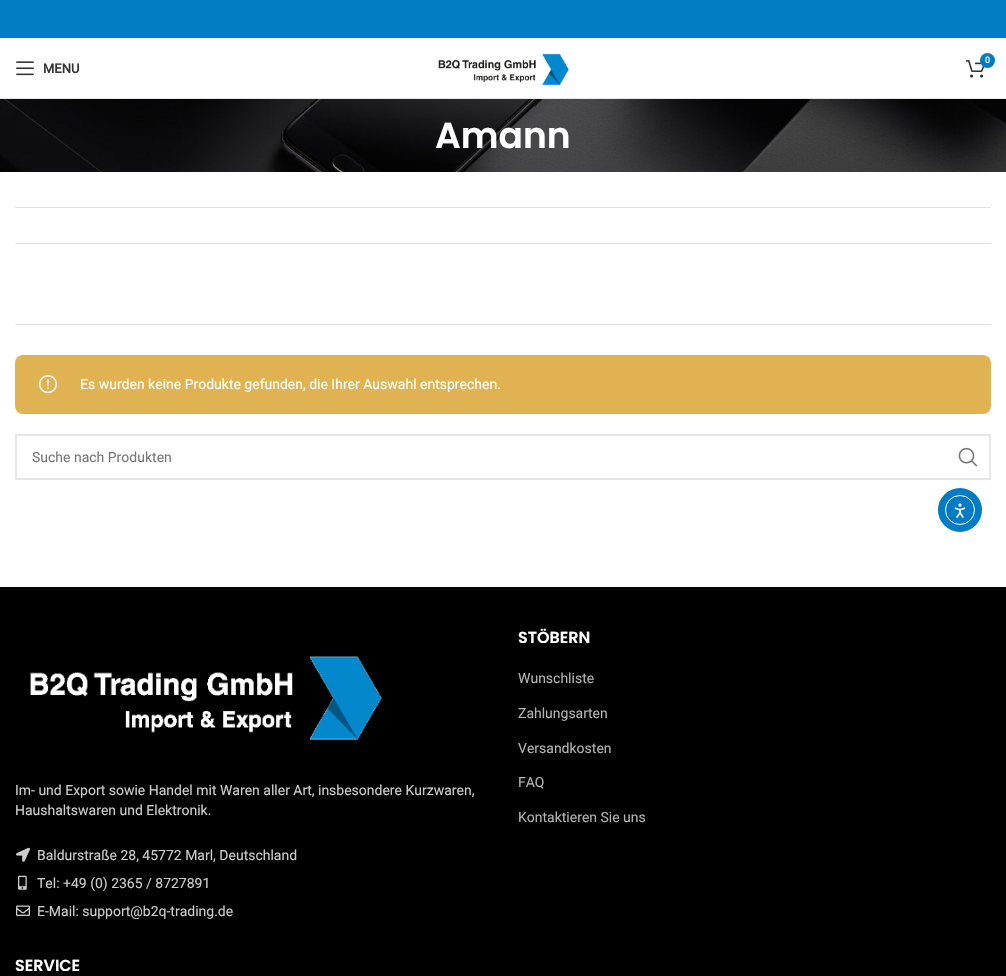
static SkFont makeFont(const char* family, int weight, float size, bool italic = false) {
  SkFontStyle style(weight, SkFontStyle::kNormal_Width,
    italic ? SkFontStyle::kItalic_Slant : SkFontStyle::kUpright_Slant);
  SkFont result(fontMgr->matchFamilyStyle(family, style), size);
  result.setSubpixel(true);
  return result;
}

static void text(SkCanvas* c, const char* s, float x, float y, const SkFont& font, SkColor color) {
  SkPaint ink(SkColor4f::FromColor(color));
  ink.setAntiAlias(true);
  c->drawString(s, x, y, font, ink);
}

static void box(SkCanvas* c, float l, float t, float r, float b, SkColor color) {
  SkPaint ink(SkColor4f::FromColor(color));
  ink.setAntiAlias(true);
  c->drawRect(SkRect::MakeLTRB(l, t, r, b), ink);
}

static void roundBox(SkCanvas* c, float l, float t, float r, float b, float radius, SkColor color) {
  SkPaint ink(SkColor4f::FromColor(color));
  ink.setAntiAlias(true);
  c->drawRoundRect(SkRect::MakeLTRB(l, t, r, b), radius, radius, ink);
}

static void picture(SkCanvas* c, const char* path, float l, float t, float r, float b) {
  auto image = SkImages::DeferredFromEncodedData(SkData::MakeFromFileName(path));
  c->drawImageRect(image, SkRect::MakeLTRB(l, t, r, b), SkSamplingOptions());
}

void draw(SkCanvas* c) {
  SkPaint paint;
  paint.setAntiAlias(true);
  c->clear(0xffffffff);
  box(c, 0, 0, 1006, 38, 0xff007bc4);
  box(c, 0, 98, 1006, 99, 0xffe8e8e8);
  picture(c, "img_01.png", 438, 53, 569, 85);
  picture(c, "img_02.png", 966, 60, 985, 78);
  paint.setColor(0xff007bc4);
  c->drawCircle(987.5f, 60.5f, 7.5f, paint);
  SkFont face1 = makeFont("Roboto", 400, 9);
  text(c, "0", 985, 63, face1, 0xffffffff);
  picture(c, "img_03.png", 16, 61, 34, 76);
  SkFont face2 = makeFont("Roboto", 700, 13);
  text(c, "MENU", 43, 73, face2, 0xff333333);
  picture(c, "img_04.png", 0, 99, 1006, 172);
  SkFont face3 = makeFont("Poppins", 600, 36);
  text(c, "Amann", 435, 148, face3, 0xffffffff);
  box(c, 15, 207, 991, 208, 0xffe4e4e4);
  box(c, 15, 243, 991, 244, 0xffe4e4e4);
  box(c, 15, 324, 991, 325, 0xffe4e4e4);
  roundBox(c, 15, 355, 991, 414, 8, 0xffe0b252);
  picture(c, "img_05.png", 39, 375, 57, 394);
  SkFont face4 = makeFont("Roboto", 400, 14);
  text(c, "Es wurden keine Produkte gefunden, die Ihrer Auswahl entsprechen.", 80, 389, face4, 0xffffffff);
  paint.setStyle(SkPaint::kStroke_Style);
  paint.setStrokeWidth(2);
  paint.setColor(0xffe6e6e6);
  c->drawRect(SkRect::MakeLTRB(16, 435, 990, 479), paint);
  text(c, "Suche nach Produkten", 32, 462, face4, 0xff777777);
  picture(c, "img_06.png", 958, 447, 978, 467);
  box(c, 0, 587, 1006, 976, 0xff000000);
  SkFont face5 = makeFont("Poppins", 600, 16);
  text(c, "STÖBERN", 518, 643, face5, 0xffffffff);
  text(c, "Wunschliste", 518, 683, face4, 0xffb3b3b3);
  text(c, "Zahlungsarten", 518, 718, face4, 0xffb3b3b3);
  text(c, "Versandkosten", 518, 753, face4, 0xffb3b3b3);
  text(c, "FAQ", 518, 787, face4, 0xffb3b3b3);
  text(c, "Kontaktieren Sie uns", 518, 822, face4, 0xffb3b3b3);
  picture(c, "img_07.png", 30, 656, 382, 740);
  text(c, "Im- und Export sowie Handel mit Waren aller Art, insbesondere Kurzwaren,", 15, 795, face4, 0xffcccccc);
  text(c, "Haushaltswaren und Elektronik.", 15, 815, face4, 0xffcccccc);
  picture(c, "img_08.png", 16, 847, 30, 862);
  text(c, "Baldurstraße 28, 45772 Marl, Deutschland", 37, 860, face4, 0xffcccccc);
  picture(c, "img_09.png", 18, 875, 27, 890);
  text(c, "Tel: +49 (0) 2365 / 8727891", 37, 888, face4, 0xffcccccc);
  picture(c, "img_10.png", 16, 905, 30, 916);
  text(c, "E-Mail: support@b2q-trading.de", 37, 916, face4, 0xffcccccc);
  text(c, "SERVICE", 15, 971, face5, 0xffffffff);
  paint.setStyle(SkPaint::kFill_Style);
  paint.setColor(0xff007bc4);
  c->drawCircle(960, 510, 22, paint);
  paint.setStyle(SkPaint::kStroke_Style);
  paint.setStrokeWidth(1);
  paint.setColor(0xffffffff);
  c->drawCircle(960, 510, 14.5f, paint);
  picture(c, "img_11.png", 954, 503, 966, 518);
}
